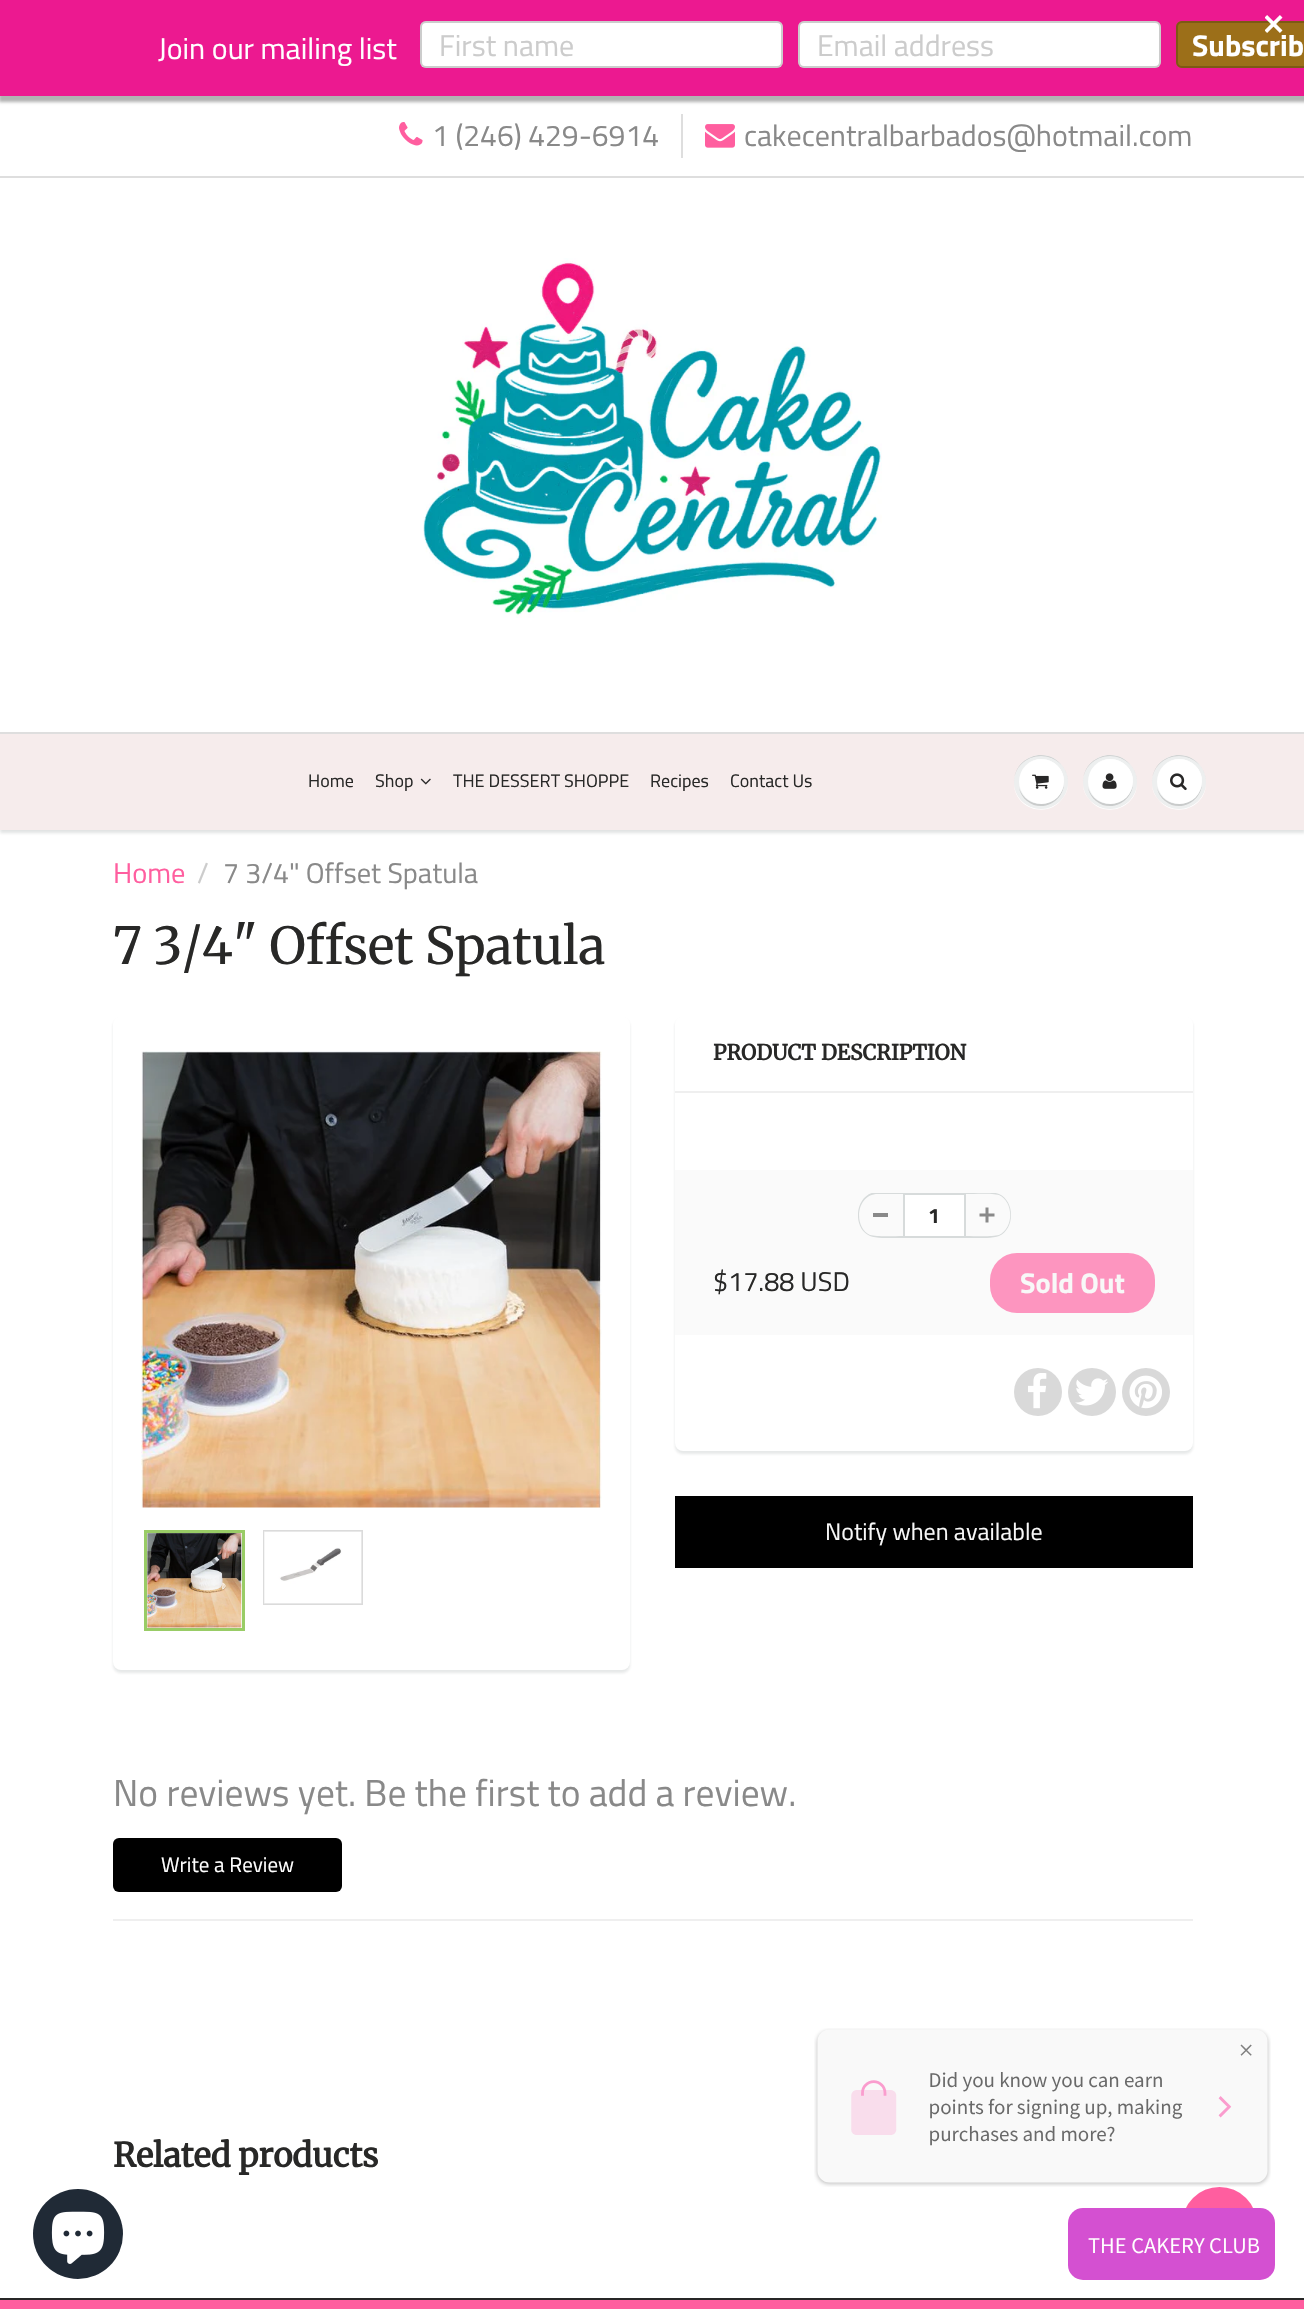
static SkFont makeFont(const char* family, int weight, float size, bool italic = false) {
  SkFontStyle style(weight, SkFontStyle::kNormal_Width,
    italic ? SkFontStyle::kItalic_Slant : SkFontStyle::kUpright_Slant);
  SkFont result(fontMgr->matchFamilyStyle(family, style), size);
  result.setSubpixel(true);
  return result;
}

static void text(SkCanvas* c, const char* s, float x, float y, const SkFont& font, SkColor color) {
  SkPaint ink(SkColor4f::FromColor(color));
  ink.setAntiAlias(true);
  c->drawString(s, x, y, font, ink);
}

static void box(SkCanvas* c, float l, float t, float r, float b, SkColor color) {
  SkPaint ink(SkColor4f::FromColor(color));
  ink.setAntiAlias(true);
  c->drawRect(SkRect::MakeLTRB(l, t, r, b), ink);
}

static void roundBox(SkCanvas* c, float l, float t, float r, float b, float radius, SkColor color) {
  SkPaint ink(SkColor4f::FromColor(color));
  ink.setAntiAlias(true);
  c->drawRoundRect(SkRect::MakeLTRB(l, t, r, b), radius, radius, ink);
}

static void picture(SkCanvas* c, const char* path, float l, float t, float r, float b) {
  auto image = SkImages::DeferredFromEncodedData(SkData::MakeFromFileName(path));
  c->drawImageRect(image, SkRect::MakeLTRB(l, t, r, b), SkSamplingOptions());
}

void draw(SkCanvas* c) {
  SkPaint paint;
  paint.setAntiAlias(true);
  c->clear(0xffffffff);
  paint.setColor(0x4d000000);
  paint.setMaskFilter(SkMaskFilter::MakeBlur(kNormal_SkBlurStyle, 1.5f));
  c->drawRect(SkRect::MakeLTRB(-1, 3, 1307, 102), paint);
  paint.setMaskFilter(nullptr);
  box(c, 0, 0, 1304, 96, 0xffec1990);
  paint.setColor(0xff9c6f19);
  c->drawPath(SkPathBuilder().moveTo(1182, 21).lineTo(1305, 21).lineTo(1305, 68).lineTo(1182, 68).cubicTo(1178.5f, 68, 1176, 65.5f, 1176, 62).lineTo(1176, 27).cubicTo(1176, 23.5f, 1178.5f, 21, 1182, 21).close().detach(), paint);
  paint.setStyle(SkPaint::kStroke_Style);
  paint.setStrokeWidth(2);
  paint.setColor(0x33000000);
  c->drawRoundRect(SkRect::MakeLTRB(1177, 22, 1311, 67), 5, 5, paint);
  picture(c, "img_01.png", 1265, 15, 1283, 33);
  SkFont face1 = makeFont("Titillium Web", 400, 30);
  text(c, "Join our mailing list", 158, 59, face1, 0xffffffff);
  roundBox(c, 420, 21, 783, 68, 6, 0xffffffff);
  c->drawRoundRect(SkRect::MakeLTRB(421, 22, 782, 67), 5, 5, paint);
  text(c, "First name", 439, 56, face1, 0xffcccccc);
  roundBox(c, 798, 21, 1161, 68, 6, 0xffffffff);
  c->drawRoundRect(SkRect::MakeLTRB(799, 22, 1160, 67), 5, 5, paint);
  text(c, "Email address", 817, 56, face1, 0xffcccccc);
  SkFont face2 = makeFont("Titillium Web", 700, 30);
  text(c, "Subscrib", 1192, 56, face2, 0xffffffff);
  picture(c, "img_02.png", 399, 122, 423, 146);
  text(c, "1 (246) 429-6914", 432, 146, face1, 0xff898989);
  box(c, 681, 114, 683, 158, 0xffdedede);
  picture(c, "img_03.png", 705, 124, 735, 148);
  text(c, "cakecentralbarbados@hotmail.com", 744, 146, face1, 0xff898989);
  box(c, 0, 176, 1304, 178, 0xffdedede);
  picture(c, "img_04.png", 423, 258, 882, 618);
  paint.setStyle(SkPaint::kFill_Style);
  paint.setColor(0x1f0b191c);
  paint.setMaskFilter(SkMaskFilter::MakeBlur(kNormal_SkBlurStyle, 1.5f));
  c->drawRect(SkRect::MakeLTRB(0, 735, 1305, 833), paint);
  paint.setMaskFilter(nullptr);
  box(c, 0, 734, 1304, 830, 0xfff6ecec);
  box(c, 0, 732, 1304, 734, 0xffdedede);
  SkFont face3 = makeFont("Titillium Web", 400, 18);
  text(c, "Home", 308, 787, face3, 0xff282827);
  text(c, "Shop", 375, 787, face3, 0xff282827);
  picture(c, "img_05.png", 420, 778, 431, 785);
  text(c, "THE DESSERT SHOPPE", 453, 787, face3, 0xff282827);
  text(c, "Recipes", 650, 787, face3, 0xff282827);
  text(c, "Contact Us", 730, 787, face3, 0xff282827);
  paint.setColor(0xffffffff);
  c->drawPath(SkPathBuilder().moveTo(1068, 782).cubicTo(1067, 817, 1015, 817, 1014, 782).cubicTo(1013, 809, 1048, 820, 1063, 798).cubicTo(1067, 793, 1068, 788, 1068, 782).close().detach(), paint);
  paint.setColor(0xffedefef);
  c->drawCircle(1041, 782, 27, paint);
  paint.setColor(0xffc9cbcb);
  c->drawPath(SkPathBuilder().moveTo(1041, 756).cubicTo(1056, 756, 1068, 768, 1068, 782).cubicTo(1068, 777, 1066, 771, 1063, 767).cubicTo(1048, 745, 1014, 756, 1014, 782).cubicTo(1014, 768, 1026, 756, 1041, 756).close().detach(), paint);
  c->drawPath(SkPathBuilder().moveTo(1019, 788).cubicTo(1020, 793, 1023, 798, 1027, 801).cubicTo(1044, 815, 1069, 798, 1063, 777).cubicTo(1069, 805, 1028, 815, 1019, 788).close().detach(), paint);
  paint.setColor(0xffffffff);
  c->drawCircle(1041.5f, 781.5f, 22.5f, paint);
  c->drawPath(SkPathBuilder().moveTo(1041, 760).cubicTo(1058.5f, 760, 1065.5f, 775.5f, 1063, 788).cubicTo(1070, 766, 1042.5f, 749.5f, 1026, 765).cubicTo(1029.5f, 762, 1034.5f, 760, 1041, 760).close().detach(), paint);
  picture(c, "img_06.png", 1032, 774, 1049, 789);
  c->drawPath(SkPathBuilder().moveTo(1137, 782).cubicTo(1136, 817, 1084, 817, 1083, 782).cubicTo(1083, 788, 1084, 793, 1088, 798).cubicTo(1103, 820, 1138, 809, 1137, 782).close().detach(), paint);
  paint.setColor(0xffedefef);
  c->drawCircle(1110, 782, 27, paint);
  paint.setColor(0xffc9cbcb);
  c->drawPath(SkPathBuilder().moveTo(1110, 756).cubicTo(1125, 756, 1137, 768, 1137, 782).cubicTo(1137, 777, 1135, 771, 1132, 767).cubicTo(1117, 745, 1083, 756, 1083, 782).cubicTo(1083, 768, 1095, 756, 1110, 756).close().detach(), paint);
  c->drawPath(SkPathBuilder().moveTo(1088, 788).cubicTo(1089, 793, 1092, 798, 1096, 801).cubicTo(1113, 815, 1138, 798, 1132, 777).cubicTo(1138, 805, 1097, 815, 1088, 788).close().detach(), paint);
  paint.setColor(0xffffffff);
  c->drawCircle(1110.5f, 781.5f, 22.5f, paint);
  c->drawPath(SkPathBuilder().moveTo(1110, 760).cubicTo(1127.5f, 760, 1134.5f, 775.5f, 1132, 788).cubicTo(1139, 766, 1111.5f, 749.5f, 1095, 765).cubicTo(1098.5f, 762, 1103.5f, 760, 1110, 760).close().detach(), paint);
  picture(c, "img_07.png", 1102, 773, 1117, 789);
  c->drawPath(SkPathBuilder().moveTo(1206, 782).cubicTo(1205, 817, 1153, 817, 1152, 782).cubicTo(1152, 788, 1153, 793, 1157, 798).cubicTo(1172, 820, 1207, 809, 1206, 782).close().detach(), paint);
  paint.setColor(0xffedefef);
  c->drawCircle(1179, 782, 27, paint);
  paint.setColor(0xffc9cbcb);
  c->drawPath(SkPathBuilder().moveTo(1179, 756).cubicTo(1194, 756, 1206, 768, 1206, 782).cubicTo(1206, 777, 1204, 771, 1201, 767).cubicTo(1186, 745, 1152, 756, 1152, 782).cubicTo(1152, 768, 1164, 756, 1179, 756).close().detach(), paint);
  c->drawPath(SkPathBuilder().moveTo(1157, 788).cubicTo(1158, 793, 1161, 798, 1165, 801).cubicTo(1182, 815, 1207, 798, 1201, 777).cubicTo(1207, 805, 1166, 815, 1157, 788).close().detach(), paint);
  paint.setColor(0xffffffff);
  c->drawCircle(1179.5f, 781.5f, 22.5f, paint);
  c->drawPath(SkPathBuilder().moveTo(1179, 760).cubicTo(1196.5f, 760, 1203.5f, 775.5f, 1201, 788).cubicTo(1208, 766, 1180.5f, 749.5f, 1164, 765).cubicTo(1167.5f, 762, 1172.5f, 760, 1179, 760).close().detach(), paint);
  picture(c, "img_08.png", 1170, 773, 1187, 791);
  SkFont face4 = makeFont("Titillium Web", 400, 28.5f);
  text(c, "Home", 113, 883, face4, 0xffff5e9f);
  text(c, "/", 197, 883, face4, 0xffcccccc);
  text(c, "7 3/4\" Offset Spatula", 223, 883, face4, 0xff898989);
  SkFont face5 = makeFont("Merriweather", 400, 51);
  text(c, "7 3/4\" Offset Spatula", 113, 964, face5, 0xff282827);
  paint.setColor(0x1a0b191c);
  paint.setMaskFilter(SkMaskFilter::MakeBlur(kNormal_SkBlurStyle, 1.5f));
  c->drawRoundRect(SkRect::MakeLTRB(113, 1019, 630, 1673), 8, 8, paint);
  paint.setMaskFilter(nullptr);
  roundBox(c, 113, 1016, 630, 1670, 8, 0xffffffff);
  picture(c, "img_09.png", 141, 1051, 602, 1508);
  paint.setStyle(SkPaint::kStroke_Style);
  paint.setStrokeWidth(3);
  paint.setColor(0xff99cc66);
  c->drawRect(SkRect::MakeLTRB(145.5f, 1531.5f, 243.5f, 1629.5f), paint);
  picture(c, "img_10.png", 147, 1533, 242, 1628);
  paint.setStrokeWidth(2);
  paint.setColor(0xffdbdbdb);
  c->drawRect(SkRect::MakeLTRB(264, 1531, 362, 1604), paint);
  picture(c, "img_11.png", 264, 1531, 362, 1604);
  paint.setStyle(SkPaint::kFill_Style);
  paint.setColor(0x1a0b191c);
  paint.setMaskFilter(SkMaskFilter::MakeBlur(kNormal_SkBlurStyle, 1.5f));
  c->drawRoundRect(SkRect::MakeLTRB(675, 1019, 1193, 1454), 8, 8, paint);
  paint.setMaskFilter(nullptr);
  roundBox(c, 675, 1016, 1193, 1451, 8, 0xffffffff);
  box(c, 675, 1091, 1193, 1093, 0xffefefef);
  SkFont face6 = makeFont("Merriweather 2", 700, 21);
  text(c, "PRODUCT DESCRIPTION", 713, 1060, face6, 0xff282827);
  box(c, 675, 1170, 1193, 1335, 0xfffafafa);
  box(c, 873, 1213, 888, 1217, 0xff898989);
  c->save();
  c->clipRect(SkRect::MakeLTRB(858, 1193, 1011, 1238));
  paint.setColor(0xffd7dbdb);
  c->drawPath(SkPathBuilder(SkPathFillType::kEvenOdd).moveTo(878, 1192).lineTo(903, 1192).lineTo(903, 1238).cubicTo(895, 1238, 877, 1239, 870, 1236).cubicTo(851, 1228, 855, 1192, 878, 1192).close().moveTo(878, 1194).lineTo(903, 1194).lineTo(903, 1236).cubicTo(895, 1236, 877, 1237, 870, 1235).cubicTo(853, 1227, 856, 1194, 878, 1194).close().detach(), paint);
  c->restore();
  paint.setColor(0xffffffff);
  c->drawRect(SkRect::MakeLTRB(904, 1194, 965, 1237), paint);
  paint.setStyle(SkPaint::kStroke_Style);
  paint.setColor(0xffd7dbdb);
  c->drawRect(SkRect::MakeLTRB(904, 1194, 965, 1237), paint);
  SkFont face7 = makeFont("Titillium Web", 700, 21);
  text(c, "1", 928, 1223, face7, 0xff282827);
  picture(c, "img_12.png", 979, 1207, 995, 1223);
  c->save();
  c->clipRect(SkRect::MakeLTRB(858, 1193, 1011, 1238));
  paint.setStyle(SkPaint::kFill_Style);
  c->drawPath(SkPathBuilder(SkPathFillType::kEvenOdd).moveTo(966, 1192).cubicTo(974, 1192, 992, 1191, 999, 1194).cubicTo(1015, 1201, 1015, 1229, 999, 1236).cubicTo(992, 1239, 974, 1238, 966, 1238).close().moveTo(966, 1194).cubicTo(974, 1194, 992, 1193, 999, 1195).cubicTo(1014, 1202, 1014, 1228, 999, 1235).cubicTo(992, 1237, 974, 1236, 966, 1236).close().detach(), paint);
  c->restore();
  SkFont face8 = makeFont("Titillium Web", 400, 27);
  text(c, "$17.88 USD", 713, 1291, face8, 0xff282827);
  roundBox(c, 990, 1253, 1155, 1313, 27, 0xfffd95bf);
  SkFont face9 = makeFont("Titillium Web", 700, 28.5f);
  text(c, "Sold Out", 1020, 1293, face9, 0xfff8f8f8);
  paint.setColor(0xffd9d9d9);
  c->drawCircle(1038, 1392, 24, paint);
  picture(c, "img_13.png", 1028, 1373, 1047, 1409);
  c->drawCircle(1092, 1392, 24, paint);
  picture(c, "img_14.png", 1075, 1378, 1108, 1406);
  c->drawCircle(1146, 1392, 24, paint);
  picture(c, "img_15.png", 1129, 1375, 1162, 1409);
  box(c, 675, 1496, 1193, 1568, 0xff000000);
  SkFont face10 = makeFont("Titillium Web", 400, 24);
  text(c, "Notify when available", 825, 1540, face10, 0xfff8f8f8);
  box(c, 113, 1919, 1193, 1921, 0xffefefef);
  SkFont face11 = makeFont("Titillium Web", 400, 37.5f);
  text(c, "No reviews yet. Be the first to add a review.", 113, 1806, face11, 0xff898989);
  roundBox(c, 113, 1838, 342, 1892, 6, 0xff000000);
  SkFont face12 = makeFont("Titillium Web", 400, 21);
  text(c, "Write a Review", 161, 1872, face12, 0xffffffff);
  SkFont face13 = makeFont("Merriweather", 700, 33);
  text(c, "Related products", 113, 2167, face13, 0xff282827);
  box(c, 0, 2300, 1304, 2309, 0xffff5e9f);
  box(c, 0, 2298, 1304, 2300, 0xff282727);
  picture(c, "img_16.png", 814, 2028, 1271, 2187);
  paint.setColor(0xff202a36);
  c->drawCircle(78, 2234, 45, paint);
  picture(c, "img_17.png", 51, 2211, 105, 2264);
  paint.setColor(0xffff5e9f);
  c->drawCircle(1219.5f, 2224.5f, 37.5f, paint);
  picture(c, "img_18.png", 1068, 2208, 1275, 2280);
}
